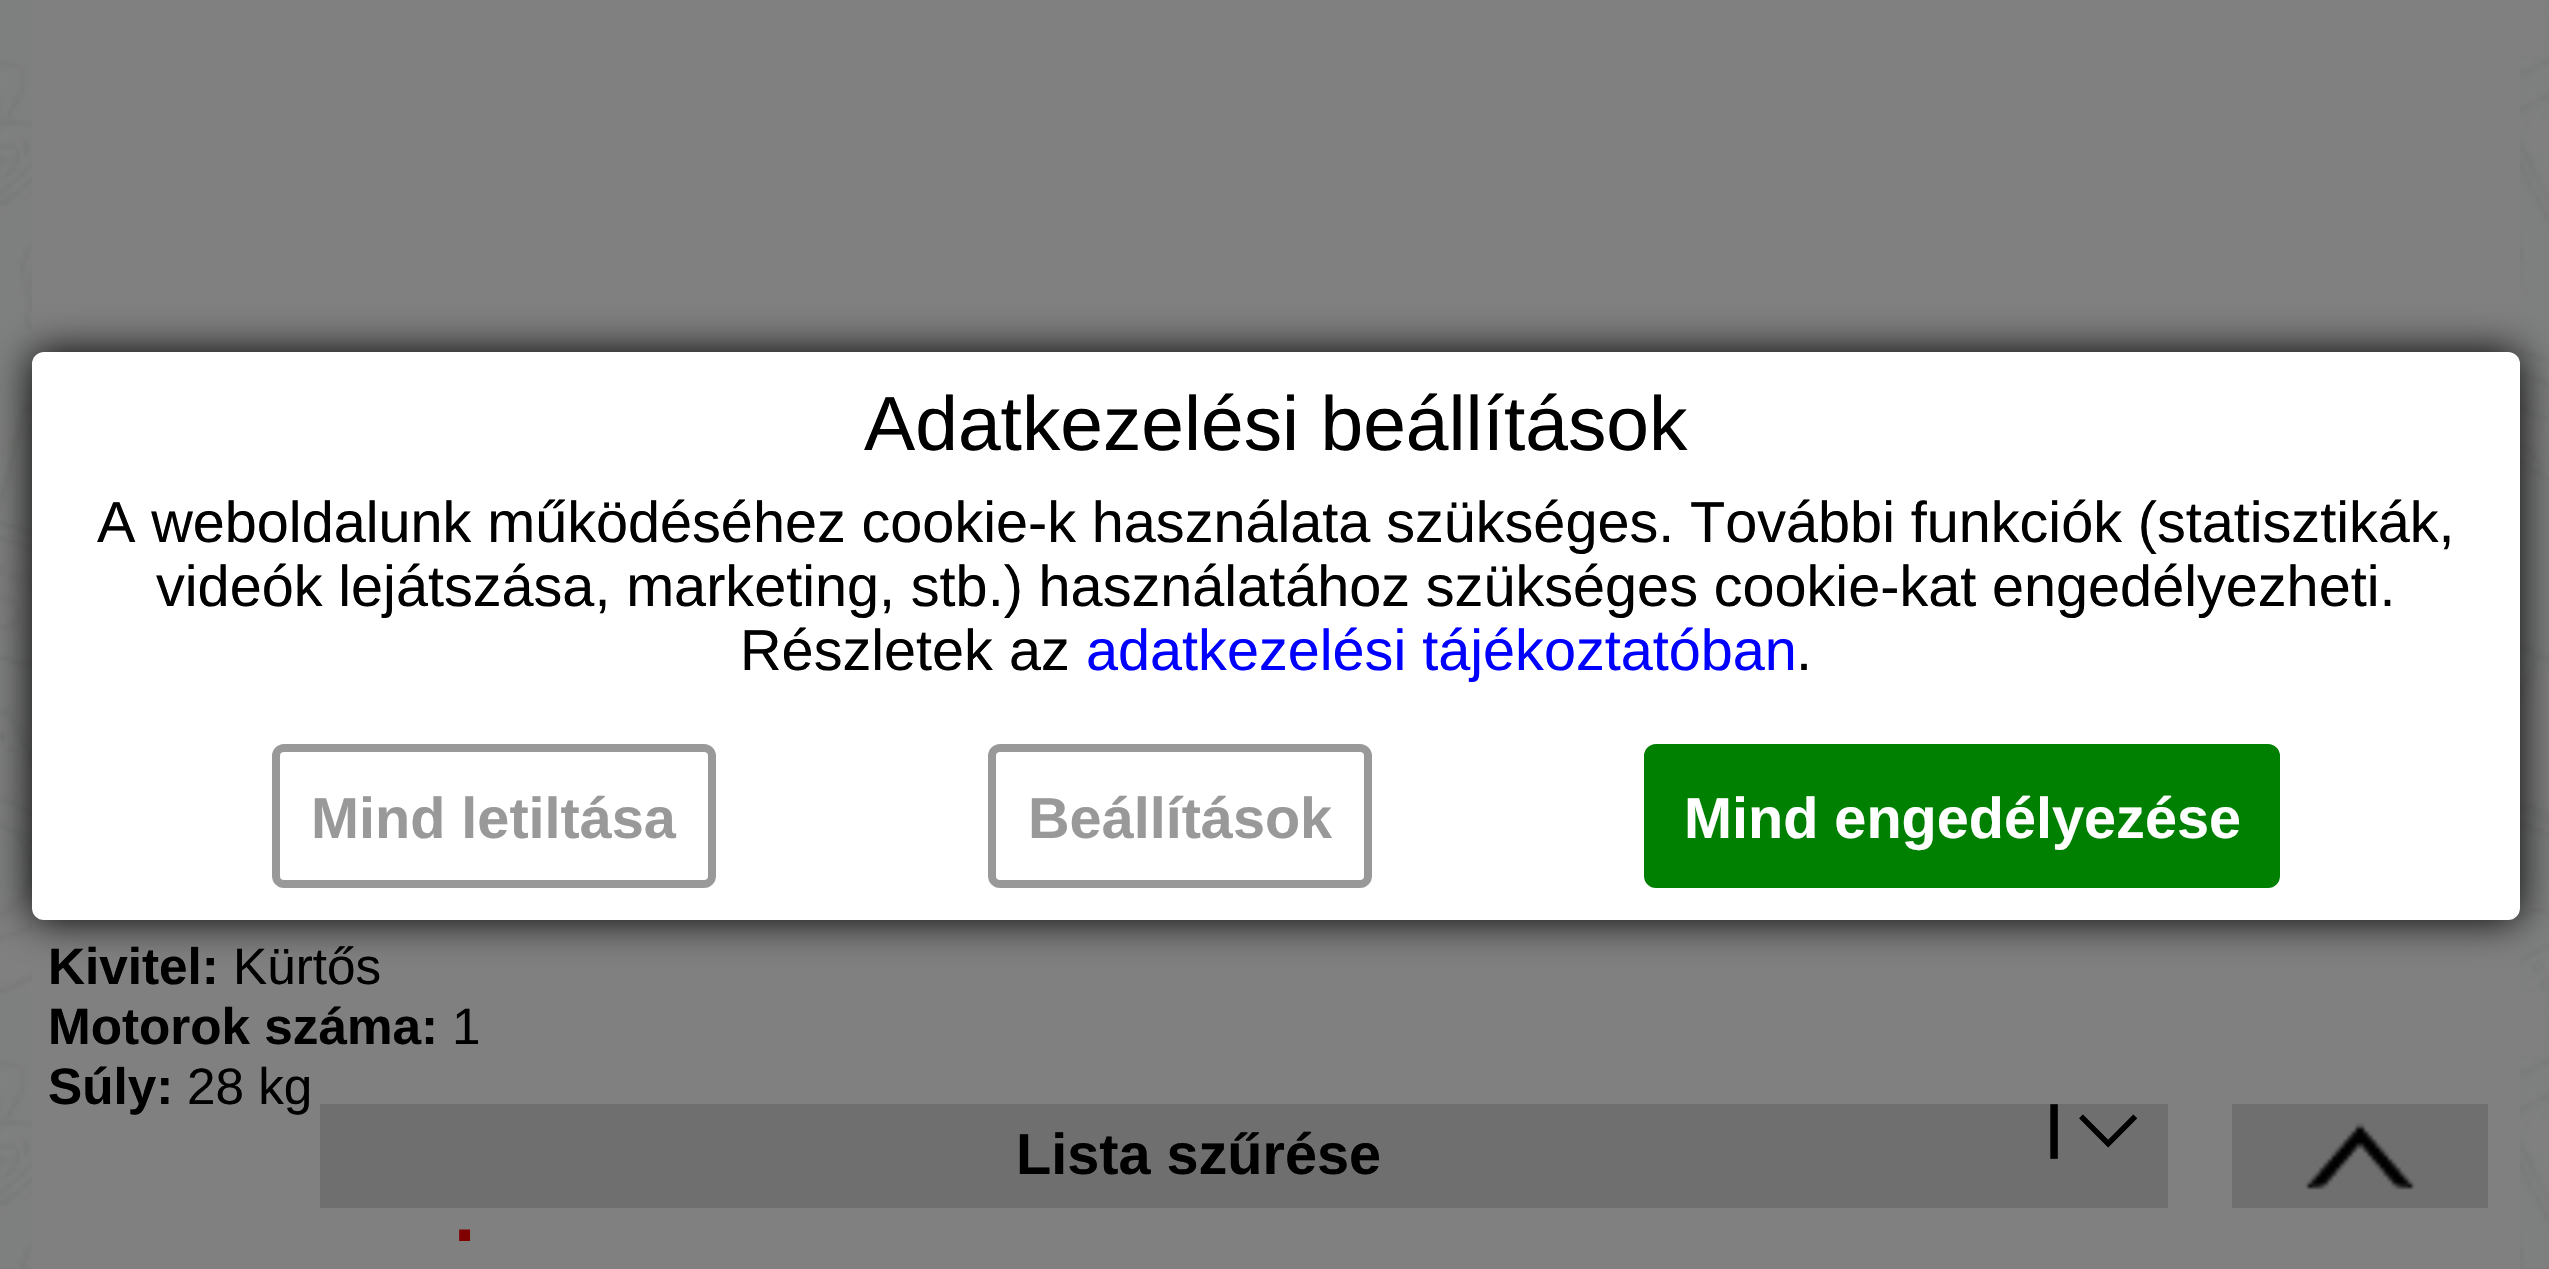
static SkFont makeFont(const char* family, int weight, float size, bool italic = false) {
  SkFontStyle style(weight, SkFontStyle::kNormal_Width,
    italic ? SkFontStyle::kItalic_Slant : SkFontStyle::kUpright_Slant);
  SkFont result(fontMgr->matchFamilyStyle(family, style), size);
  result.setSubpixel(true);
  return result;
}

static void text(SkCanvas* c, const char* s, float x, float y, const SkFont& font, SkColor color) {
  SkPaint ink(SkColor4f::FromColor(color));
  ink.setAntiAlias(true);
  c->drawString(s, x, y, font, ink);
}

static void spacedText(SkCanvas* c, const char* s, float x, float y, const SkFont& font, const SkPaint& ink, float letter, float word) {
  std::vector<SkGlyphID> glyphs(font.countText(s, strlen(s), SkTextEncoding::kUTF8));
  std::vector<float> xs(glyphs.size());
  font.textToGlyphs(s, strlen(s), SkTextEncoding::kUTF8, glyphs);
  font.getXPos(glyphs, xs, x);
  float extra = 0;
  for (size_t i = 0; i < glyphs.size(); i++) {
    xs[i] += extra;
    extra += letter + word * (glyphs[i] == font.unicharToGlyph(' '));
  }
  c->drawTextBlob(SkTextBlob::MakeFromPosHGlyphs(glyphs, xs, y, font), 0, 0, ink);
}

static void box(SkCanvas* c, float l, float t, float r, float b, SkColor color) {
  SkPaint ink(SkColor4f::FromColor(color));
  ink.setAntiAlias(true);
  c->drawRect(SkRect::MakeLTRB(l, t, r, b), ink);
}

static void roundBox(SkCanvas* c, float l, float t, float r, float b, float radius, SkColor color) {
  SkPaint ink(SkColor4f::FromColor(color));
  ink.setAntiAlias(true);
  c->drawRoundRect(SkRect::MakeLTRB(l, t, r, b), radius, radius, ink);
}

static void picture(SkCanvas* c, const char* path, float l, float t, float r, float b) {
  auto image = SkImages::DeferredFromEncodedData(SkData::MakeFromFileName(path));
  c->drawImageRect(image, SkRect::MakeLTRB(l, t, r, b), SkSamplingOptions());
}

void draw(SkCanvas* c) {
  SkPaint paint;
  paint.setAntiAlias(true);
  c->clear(0xffffffff);
  picture(c, "img_01.png", 0, 0, 2549, 1269);
  box(c, 32, 0, 2520, 1269, 0xff808080);
  paint.setColor(0xff000000);
  paint.setMaskFilter(SkMaskFilter::MakeBlur(kNormal_SkBlurStyle, 20));
  c->drawRoundRect(SkRect::MakeLTRB(32, 352, 2520, 920), 12, 12, paint);
  paint.setMaskFilter(nullptr);
  roundBox(c, 32, 352, 2520, 920, 12, 0xffffffff);
  SkFont face1 = makeFont("Liberation Sans", 400, 76.75f);
  text(c, "Adatkezelési beállítások", 864, 450, face1, 0xff000000);
  SkFont face2 = makeFont("Liberation Sans", 400, 57.6f);
  spacedText(c, "A weboldalunk működéséhez cookie-k használata szükséges. További funkciók (statisztikák,", 97, 542, face2, paint, 0, -0.25f);
  spacedText(c, "videók lejátszása, marketing, stb.) használatához szükséges cookie-kat engedélyezheti.", 156, 606, face2, paint, 0, -0.25f);
  text(c, "Részletek az", 740, 670, face2, 0xff000000);
  text(c, "adatkezelési tájékoztatóban", 1086, 670, face2, 0xff0000ff);
  text(c, ".", 1796, 670, face2, 0xff000000);
  paint.setStyle(SkPaint::kStroke_Style);
  paint.setStrokeWidth(8);
  paint.setColor(0xff999999);
  c->drawRoundRect(SkRect::MakeLTRB(276, 748, 712, 884), 8, 8, paint);
  SkFont face3 = makeFont("Liberation Sans", 700, 57.6f);
  text(c, "Mind letiltása", 311, 838, face3, 0xff999999);
  c->drawRoundRect(SkRect::MakeLTRB(992, 748, 1368, 884), 8, 8, paint);
  text(c, "Beállítások", 1028, 838, face3, 0xff999999);
  paint.setStyle(SkPaint::kFill_Style);
  paint.setColor(0xff008000);
  c->drawRoundRect(SkRect::MakeLTRB(1648, 748, 2276, 884), 8, 8, paint);
  paint.setStyle(SkPaint::kStroke_Style);
  c->drawRoundRect(SkRect::MakeLTRB(1648, 748, 2276, 884), 8, 8, paint);
  text(c, "Mind engedélyezése", 1684, 838, face3, 0xffffffff);
  SkFont face4 = makeFont("Liberation Sans", 700, 51.25f);
  text(c, "Kivitel:", 48, 984, face4, 0xff000000);
  SkFont face5 = makeFont("Liberation Sans", 400, 51.25f);
  text(c, "Kürtős", 233, 984, face5, 0xff000000);
  text(c, "Motorok száma:", 48, 1044, face4, 0xff000000);
  text(c, "1", 452, 1044, face5, 0xff000000);
  text(c, "Súly:", 48, 1104, face4, 0xff000000);
  text(c, "28 kg", 187, 1104, face5, 0xff000000);
  SkFont face6 = makeFont("Liberation Sans", 700, 76.75f);
  text(c, ".", 454, 1241, face6, 0xff800000);
  box(c, 320, 1104, 2168, 1208, 0xff6f6f6f);
  text(c, "Lista szűrése", 1016, 1174, face3, 0xff000000);
  text(c, "|", 2046, 1146, face3, 0xff000000);
  SkFont face7 = makeFont("FreeSerif", 700, 76.75f);
  text(c, "⌵", 2078, 1146, face7, 0xff000000);
  box(c, 2232, 1104, 2488, 1208, 0xff6f6f6f);
  picture(c, "img_02.png", 2304, 1122, 2416, 1190);
}
